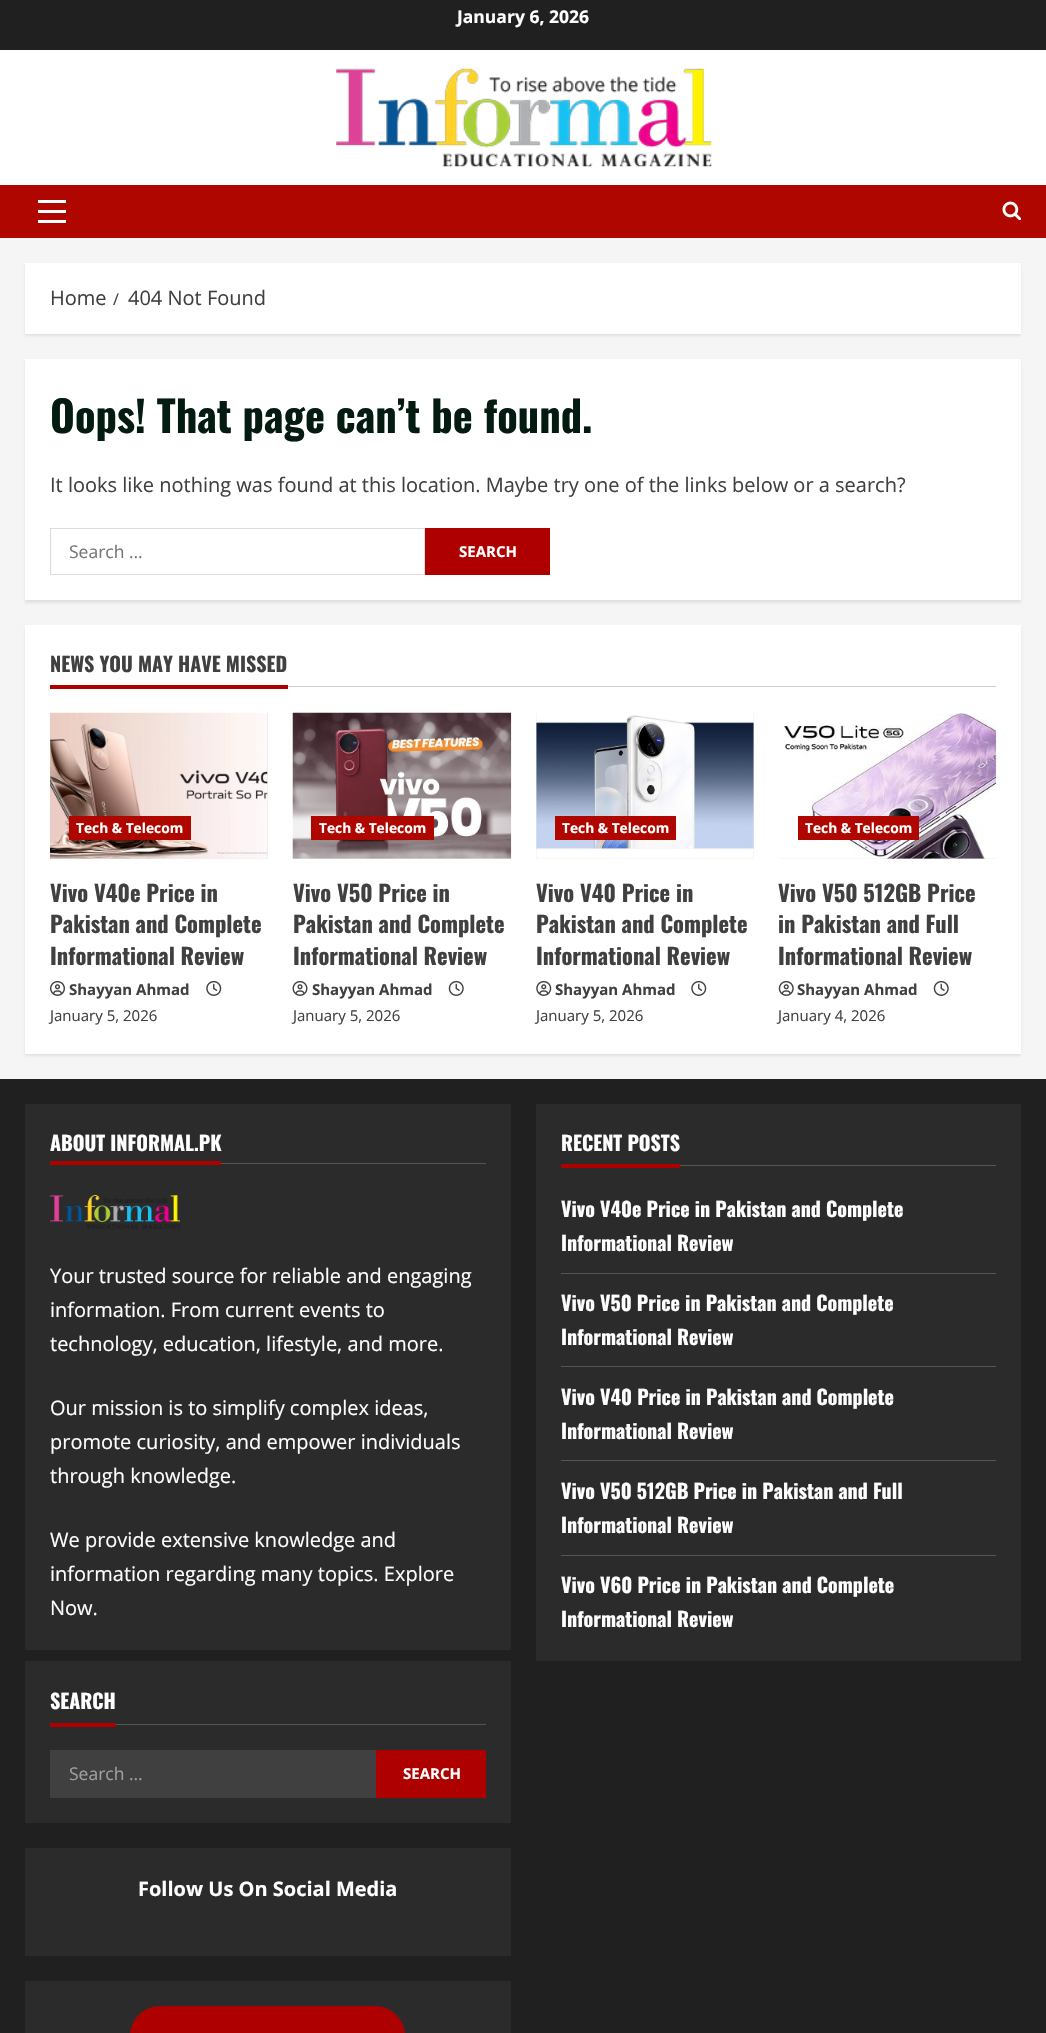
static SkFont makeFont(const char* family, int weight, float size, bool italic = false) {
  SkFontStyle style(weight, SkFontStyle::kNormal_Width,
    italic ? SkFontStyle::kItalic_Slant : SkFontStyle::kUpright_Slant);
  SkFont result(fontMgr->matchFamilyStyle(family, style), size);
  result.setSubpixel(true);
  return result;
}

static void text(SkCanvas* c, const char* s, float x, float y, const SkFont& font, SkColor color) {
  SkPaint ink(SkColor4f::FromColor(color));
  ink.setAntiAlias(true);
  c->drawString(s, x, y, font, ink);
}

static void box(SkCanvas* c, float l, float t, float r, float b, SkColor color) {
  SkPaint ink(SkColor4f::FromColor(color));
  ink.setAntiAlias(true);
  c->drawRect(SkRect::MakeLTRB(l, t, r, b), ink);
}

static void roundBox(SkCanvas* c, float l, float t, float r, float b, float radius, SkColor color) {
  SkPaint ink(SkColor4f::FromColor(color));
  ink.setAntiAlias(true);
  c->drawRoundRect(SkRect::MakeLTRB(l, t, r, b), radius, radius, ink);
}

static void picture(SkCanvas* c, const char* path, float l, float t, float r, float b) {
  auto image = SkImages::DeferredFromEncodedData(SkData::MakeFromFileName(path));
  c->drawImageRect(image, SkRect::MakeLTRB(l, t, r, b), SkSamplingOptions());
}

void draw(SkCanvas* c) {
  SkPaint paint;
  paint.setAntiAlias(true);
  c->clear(0xfff5f5f5);
  box(c, 0, 0, 1046, 50, 0xff202020);
  SkFont face1 = makeFont("Open Sans", 700, 17.5f);
  text(c, "January 6, 2026", 457, 23, face1, 0xffffffff);
  box(c, 0, 50, 1046, 185, 0xffffffff);
  picture(c, "img_01.png", 336, 68, 712, 167);
  box(c, 0, 185, 1046, 238, 0xffaf0700);
  box(c, 38, 210, 66, 213, 0xffffffff);
  box(c, 38, 200, 66, 203, 0xffffffff);
  box(c, 38, 220, 66, 223, 0xffffffff);
  picture(c, "img_02.png", 1002, 201, 1022, 221);
  paint.setColor(0x14000000);
  paint.setMaskFilter(SkMaskFilter::MakeBlur(kNormal_SkBlurStyle, 1));
  c->drawRect(SkRect::MakeLTRB(25, 265, 1021, 336), paint);
  paint.setMaskFilter(nullptr);
  box(c, 25, 263, 1021, 334, 0xffffffff);
  SkFont face2 = makeFont("Open Sans", 400, 20);
  text(c, "Home", 50, 305, face2, 0xff404040);
  SkFont face3 = makeFont("Open Sans", 400, 16);
  text(c, "/", 113, 305, face3, 0xff404040);
  text(c, "404 Not Found", 128, 305, face2, 0xff404040);
  paint.setMaskFilter(SkMaskFilter::MakeBlur(kNormal_SkBlurStyle, 1));
  c->drawRect(SkRect::MakeLTRB(25, 361, 1021, 603), paint);
  paint.setMaskFilter(nullptr);
  box(c, 25, 359, 1021, 600, 0xffffffff);
  SkFont face4 = makeFont("Oswald", 700, 42.5f);
  text(c, "Oops! That page can’t be found.", 50, 433, face4, 0xff031b11);
  text(c, "It looks like nothing was found at this location. Maybe try one of the links below or a search?", 50, 492, face2, 0xff404040);
  paint.setStyle(SkPaint::kStroke_Style);
  paint.setStrokeWidth(1);
  paint.setColor(0xffdcdcdc);
  c->drawRect(SkRect::MakeLTRB(50.5f, 528.5f, 424.5f, 574.5f), paint);
  SkFont face5 = makeFont("Open Sans", 400, 17.5f);
  text(c, "Search …", 69, 558, face5, 0xff757575);
  box(c, 425, 528, 550, 575, 0xffaf0000);
  SkFont face6 = makeFont("Open Sans", 700, 15);
  text(c, "SEARCH", 459, 557, face6, 0xffffffff);
  paint.setStyle(SkPaint::kFill_Style);
  paint.setColor(0x14000000);
  paint.setMaskFilter(SkMaskFilter::MakeBlur(kNormal_SkBlurStyle, 1));
  c->drawRect(SkRect::MakeLTRB(25, 628, 1021, 1056), paint);
  paint.setMaskFilter(nullptr);
  box(c, 25, 625, 1021, 1054, 0xffffffff);
  box(c, 288, 686, 996, 687, 0xffcccccc);
  SkFont face7 = makeFont("Oswald", 700, 20);
  text(c, "NEWS YOU MAY HAVE MISSED", 50, 672, face7, 0xff404040);
  box(c, 50, 685, 288, 689, 0xffaf0000);
  box(c, 50, 713, 268, 859, 0xffececec);
  picture(c, "img_03.png", 50, 712, 268, 859);
  box(c, 69, 816, 191, 840, 0xffaf0700);
  SkFont face8 = makeFont("Open Sans", 700, 13.75f);
  text(c, "Tech & Telecom", 76, 833, face8, 0xffffffff);
  SkFont face9 = makeFont("Oswald", 700, 22.5f);
  text(c, "Vivo V40e Price in", 50, 902, face9, 0xff404040);
  text(c, "Pakistan and Complete", 50, 933, face9, 0xff404040);
  text(c, "Informational Review", 50, 965, face9, 0xff404040);
  picture(c, "img_04.png", 50, 980, 65, 996);
  text(c, "Shayyan Ahmad", 69, 995, face6, 0xff404040);
  picture(c, "img_05.png", 206, 980, 222, 996);
  SkFont face10 = makeFont("Open Sans", 400, 15);
  text(c, "January 5, 2026", 50, 1021, face10, 0xff404040);
  box(c, 293, 858, 511, 859, 0xffececec);
  picture(c, "img_06.png", 292, 712, 512, 859);
  box(c, 311, 816, 434, 840, 0xffaf0700);
  text(c, "Tech & Telecom", 319, 833, face8, 0xffffffff);
  text(c, "Vivo V50 Price in", 293, 902, face9, 0xff404040);
  text(c, "Pakistan and Complete", 293, 933, face9, 0xff404040);
  text(c, "Informational Review", 293, 965, face9, 0xff404040);
  picture(c, "img_07.png", 292, 981, 308, 996);
  text(c, "Shayyan Ahmad", 312, 995, face6, 0xff404040);
  picture(c, "img_08.png", 448, 980, 464, 996);
  text(c, "January 5, 2026", 293, 1021, face10, 0xff404040);
  box(c, 536, 713, 754, 859, 0xffececec);
  picture(c, "img_09.png", 536, 713, 754, 859);
  box(c, 555, 816, 676, 840, 0xffaf0700);
  text(c, "Tech & Telecom", 562, 833, face8, 0xffffffff);
  text(c, "Vivo V40 Price in", 536, 902, face9, 0xff404040);
  text(c, "Pakistan and Complete", 536, 933, face9, 0xff404040);
  text(c, "Informational Review", 536, 965, face9, 0xff404040);
  picture(c, "img_10.png", 536, 980, 552, 996);
  text(c, "Shayyan Ahmad", 555, 995, face6, 0xff404040);
  picture(c, "img_05.png", 691, 980, 707, 996);
  text(c, "January 5, 2026", 536, 1021, face10, 0xff404040);
  box(c, 779, 858, 996, 859, 0xffececec);
  picture(c, "img_11.png", 779, 713, 997, 859);
  box(c, 798, 816, 919, 840, 0xffaf0700);
  text(c, "Tech & Telecom", 805, 833, face8, 0xffffffff);
  text(c, "Vivo V50 512GB Price", 778, 902, face9, 0xff404040);
  text(c, "in Pakistan and Full", 778, 933, face9, 0xff404040);
  text(c, "Informational Review", 778, 965, face9, 0xff404040);
  picture(c, "img_12.png", 778, 980, 794, 996);
  text(c, "Shayyan Ahmad", 797, 995, face6, 0xff404040);
  picture(c, "img_08.png", 933, 980, 949, 996);
  text(c, "January 4, 2026", 778, 1021, face10, 0xff404040);
  box(c, 0, 1079, 1046, 2033, 0xff202020);
  box(c, 25, 1104, 511, 1650, 0xff2b2b2b);
  text(c, "ABOUT INFORMAL.PK", 50, 1151, face7, 0xffffffff);
  box(c, 50, 1161, 221, 1165, 0xffaf0000);
  box(c, 221, 1163, 486, 1164, 0xff555555);
  picture(c, "img_13.png", 50, 1195, 180, 1229);
  text(c, "Your trusted source for reliable and engaging", 50, 1283, face2, 0xffffffff);
  text(c, "information. From current events to", 50, 1317, face2, 0xffffffff);
  text(c, "technology, education, lifestyle, and more.", 50, 1351, face2, 0xffffffff);
  text(c, "Our mission is to simplify complex ideas,", 50, 1415, face2, 0xffffffff);
  text(c, "promote curiosity, and empower individuals", 50, 1449, face2, 0xffffffff);
  text(c, "through knowledge.", 50, 1483, face2, 0xffffffff);
  text(c, "We provide extensive knowledge and", 50, 1547, face2, 0xffffffff);
  text(c, "information regarding many topics. Explore", 50, 1581, face2, 0xffffffff);
  text(c, "Now.", 50, 1615, face2, 0xffffffff);
  box(c, 536, 1104, 1021, 1661, 0xff2b2b2b);
  box(c, 680, 1165, 996, 1166, 0xff555555);
  text(c, "RECENT POSTS", 561, 1151, face7, 0xffffffff);
  box(c, 561, 1164, 680, 1168, 0xffaf0000);
  box(c, 561, 1273, 996, 1274, 0xff555555);
  text(c, "Vivo V40e Price in Pakistan and Complete", 561, 1217, face7, 0xffffffff);
  text(c, "Informational Review", 561, 1251, face7, 0xffffffff);
  box(c, 561, 1366, 996, 1367, 0xff555555);
  text(c, "Vivo V50 Price in Pakistan and Complete", 561, 1311, face7, 0xffffffff);
  text(c, "Informational Review", 561, 1345, face7, 0xffffffff);
  box(c, 561, 1460, 996, 1461, 0xff555555);
  text(c, "Vivo V40 Price in Pakistan and Complete", 561, 1405, face7, 0xffffffff);
  text(c, "Informational Review", 561, 1439, face7, 0xffffffff);
  box(c, 561, 1555, 996, 1556, 0xff555555);
  text(c, "Vivo V50 512GB Price in Pakistan and Full", 561, 1499, face7, 0xffffffff);
  text(c, "Informational Review", 561, 1533, face7, 0xffffffff);
  text(c, "Vivo V60 Price in Pakistan and Complete", 561, 1593, face7, 0xffffffff);
  text(c, "Informational Review", 561, 1627, face7, 0xffffffff);
  box(c, 25, 1661, 511, 1823, 0xff2b2b2b);
  box(c, 116, 1724, 486, 1725, 0xff555555);
  text(c, "SEARCH", 50, 1709, face7, 0xffffffff);
  box(c, 50, 1723, 116, 1727, 0xffaf0000);
  box(c, 50, 1750, 376, 1798, 0xff404040);
  text(c, "Search …", 69, 1780, face5, 0xffa0a0a0);
  box(c, 376, 1750, 486, 1798, 0xffaf0000);
  text(c, "SEARCH", 403, 1779, face6, 0xffffffff);
  box(c, 25, 1848, 511, 1956, 0xff2b2b2b);
  SkFont face11 = makeFont("Open Sans", 700, 20);
  text(c, "Follow Us On Social Media", 138, 1896, face11, 0xffffffff);
  box(c, 25, 1981, 511, 2033, 0xff2b2b2b);
  roundBox(c, 130, 2006, 405, 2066, 32.5f, 0xffaf0000);
}
